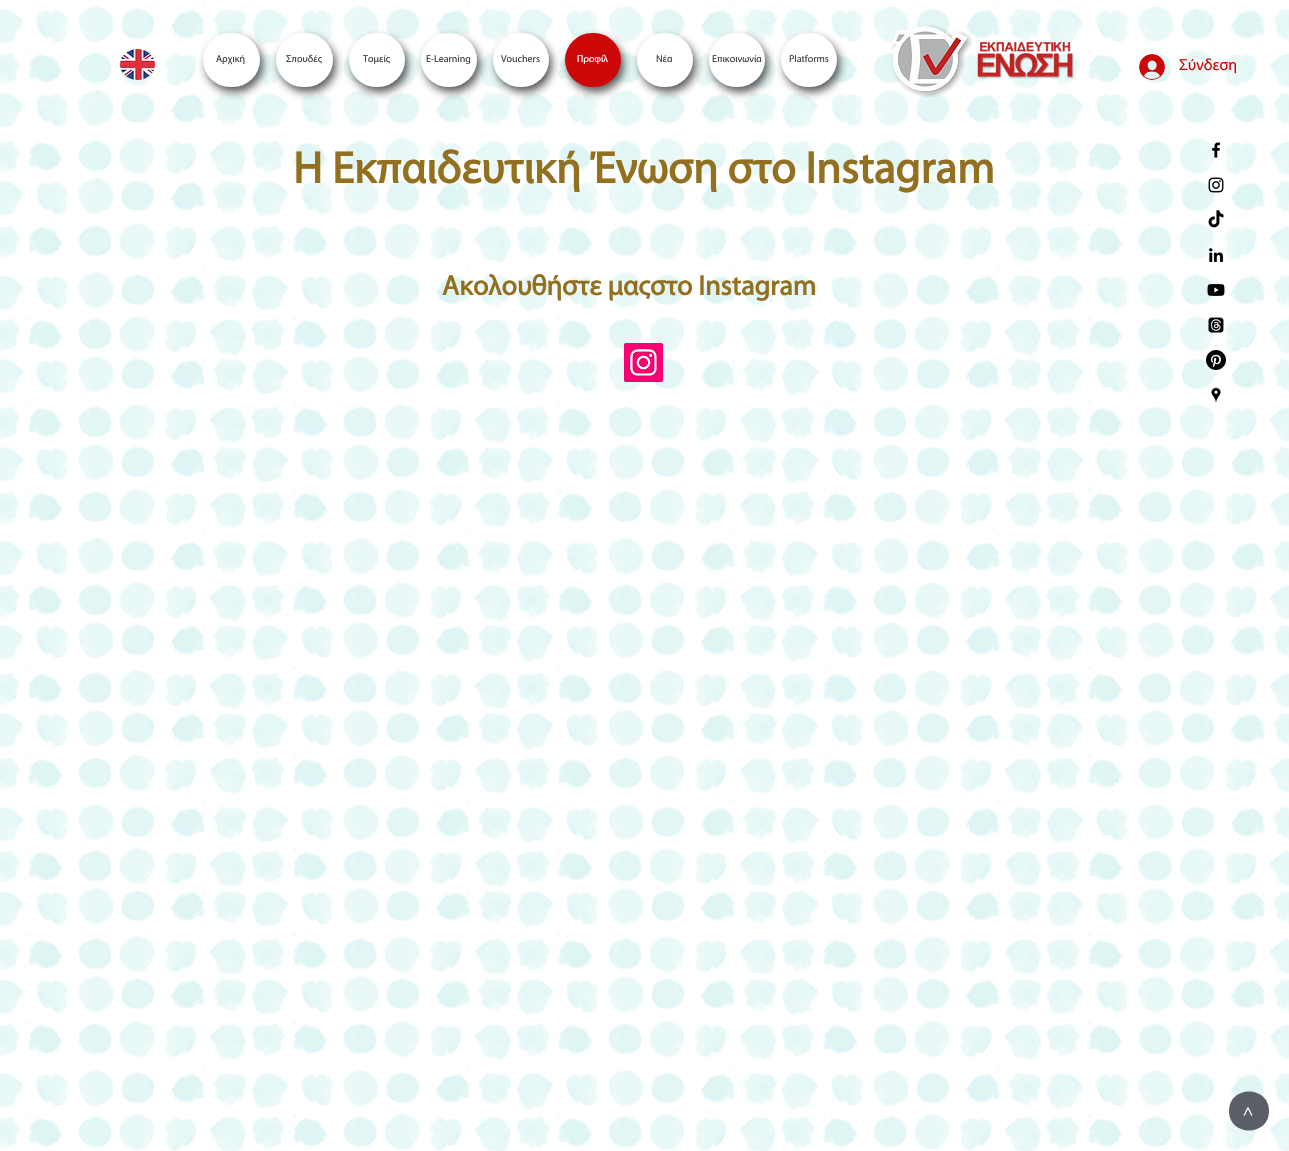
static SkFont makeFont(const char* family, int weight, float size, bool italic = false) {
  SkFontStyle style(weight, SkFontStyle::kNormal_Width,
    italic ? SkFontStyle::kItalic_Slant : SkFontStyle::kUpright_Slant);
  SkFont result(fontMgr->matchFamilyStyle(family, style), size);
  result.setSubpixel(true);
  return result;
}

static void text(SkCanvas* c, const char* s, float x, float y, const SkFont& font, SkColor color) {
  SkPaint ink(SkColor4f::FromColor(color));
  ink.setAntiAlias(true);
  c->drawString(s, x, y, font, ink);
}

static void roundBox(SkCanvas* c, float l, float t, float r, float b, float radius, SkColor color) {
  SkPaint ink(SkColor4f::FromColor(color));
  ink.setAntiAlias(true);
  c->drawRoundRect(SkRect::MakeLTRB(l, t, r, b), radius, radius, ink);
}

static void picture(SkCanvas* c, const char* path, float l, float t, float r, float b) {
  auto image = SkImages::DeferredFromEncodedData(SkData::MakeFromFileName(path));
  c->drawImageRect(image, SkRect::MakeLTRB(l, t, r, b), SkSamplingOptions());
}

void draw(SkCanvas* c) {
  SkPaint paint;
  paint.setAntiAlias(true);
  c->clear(0xffffffff);
  picture(c, "img_01.png", 0, 2, 1289, 1151);
  picture(c, "img_02.png", 120, 49, 155, 80);
  paint.setColor(0xa3000000);
  paint.setMaskFilter(SkMaskFilter::MakeBlur(kNormal_SkBlurStyle, 4.5f));
  c->drawRoundRect(SkRect::MakeLTRB(206, 38, 263, 92), 27, 27, paint);
  paint.setMaskFilter(nullptr);
  roundBox(c, 203, 33, 260, 87, 27, 0xffffffff);
  SkFont face1 = makeFont("Myriad", 400, 10);
  text(c, "Αρχική", 216, 62, face1, 0xff383838);
  paint.setMaskFilter(SkMaskFilter::MakeBlur(kNormal_SkBlurStyle, 4.5f));
  c->drawRoundRect(SkRect::MakeLTRB(279, 38, 336, 92), 27, 27, paint);
  paint.setMaskFilter(nullptr);
  roundBox(c, 276, 33, 333, 87, 27, 0xffffffff);
  text(c, "Σπουδές", 286, 62, face1, 0xff383838);
  paint.setMaskFilter(SkMaskFilter::MakeBlur(kNormal_SkBlurStyle, 4.5f));
  c->drawRoundRect(SkRect::MakeLTRB(352, 38, 408, 92), 27, 27, paint);
  paint.setMaskFilter(nullptr);
  roundBox(c, 349, 33, 405, 87, 27, 0xffffffff);
  text(c, "Τομείς", 363, 62, face1, 0xff383838);
  paint.setMaskFilter(SkMaskFilter::MakeBlur(kNormal_SkBlurStyle, 4.5f));
  c->drawRoundRect(SkRect::MakeLTRB(424, 38, 480, 92), 27, 27, paint);
  paint.setMaskFilter(nullptr);
  roundBox(c, 421, 33, 477, 87, 27, 0xffffffff);
  text(c, "E-Learning", 426, 62, face1, 0xff383838);
  paint.setMaskFilter(SkMaskFilter::MakeBlur(kNormal_SkBlurStyle, 4.5f));
  c->drawRoundRect(SkRect::MakeLTRB(496, 38, 552, 92), 27, 27, paint);
  paint.setMaskFilter(nullptr);
  roundBox(c, 493, 33, 549, 87, 27, 0xffffffff);
  text(c, "Vouchers", 501, 62, face1, 0xff383838);
  paint.setMaskFilter(SkMaskFilter::MakeBlur(kNormal_SkBlurStyle, 4.5f));
  c->drawRoundRect(SkRect::MakeLTRB(568, 38, 624, 92), 27, 27, paint);
  paint.setMaskFilter(nullptr);
  roundBox(c, 565, 33, 621, 87, 27, 0xffcc0808);
  text(c, "Προφίλ", 577, 62, face1, 0xffffffff);
  paint.setMaskFilter(SkMaskFilter::MakeBlur(kNormal_SkBlurStyle, 4.5f));
  c->drawRoundRect(SkRect::MakeLTRB(640, 38, 696, 92), 27, 27, paint);
  paint.setMaskFilter(nullptr);
  roundBox(c, 637, 33, 693, 87, 27, 0xffffffff);
  text(c, "Νέα", 656, 62, face1, 0xff383838);
  paint.setMaskFilter(SkMaskFilter::MakeBlur(kNormal_SkBlurStyle, 4.5f));
  c->drawRoundRect(SkRect::MakeLTRB(712, 38, 768, 92), 27, 27, paint);
  paint.setMaskFilter(nullptr);
  roundBox(c, 709, 33, 765, 87, 27, 0xffffffff);
  text(c, "Επικοινωνία", 712, 62, face1, 0xff383838);
  paint.setMaskFilter(SkMaskFilter::MakeBlur(kNormal_SkBlurStyle, 4.5f));
  c->drawRoundRect(SkRect::MakeLTRB(784, 38, 840, 92), 27, 27, paint);
  paint.setMaskFilter(nullptr);
  roundBox(c, 781, 33, 837, 87, 27, 0xffffffff);
  text(c, "Platforms", 789, 62, face1, 0xff383838);
  picture(c, "img_03.png", 891, 24, 973, 97);
  picture(c, "img_04.png", 977, 41, 1074, 79);
  picture(c, "img_05.png", 1139, 54, 1165, 80);
  SkFont face2 = makeFont("Myriad", 400, 16);
  text(c, "Σύνδεση", 1179, 70, face2, 0xffcc0808);
  SkFont face3 = makeFont("Myriad", 700, 45);
  text(c, "Η Εκπαιδευτική Ένωση στο Instagram", 293, 183, face3, 0xff93701f);
  SkFont face4 = makeFont("Myriad", 700, 28);
  text(c, "Ακολουθήστε μαςστο Instagram", 442, 295, face4, 0xff93701f);
  picture(c, "img_06.png", 624, 343, 663, 382);
  picture(c, "img_07.png", 1212, 142, 1221, 158);
  picture(c, "img_08.png", 1208, 177, 1224, 193);
  picture(c, "img_09.png", 1208, 210, 1224, 228);
  picture(c, "img_10.png", 1209, 248, 1224, 263);
  picture(c, "img_11.png", 1207, 283, 1225, 296);
  picture(c, "img_12.png", 1208, 317, 1224, 333);
  picture(c, "img_13.png", 1206, 350, 1226, 370);
  picture(c, "img_14.png", 1211, 387, 1221, 402);
  paint.setColor(0xff5a5f67);
  c->drawPath(SkPathBuilder().moveTo(1229, 1111).cubicTo(1229, 1085, 1269, 1085, 1269, 1111).cubicTo(1269, 1137, 1229, 1137, 1229, 1111).close().detach(), paint);
  SkFont face5 = makeFont("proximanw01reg", 400, 18);
  c->save();
  c->rotate(-90, 1254, 1116);
  text(c, ">", 1254, 1116, face5, 0xffffffff);
  c->restore();
}
